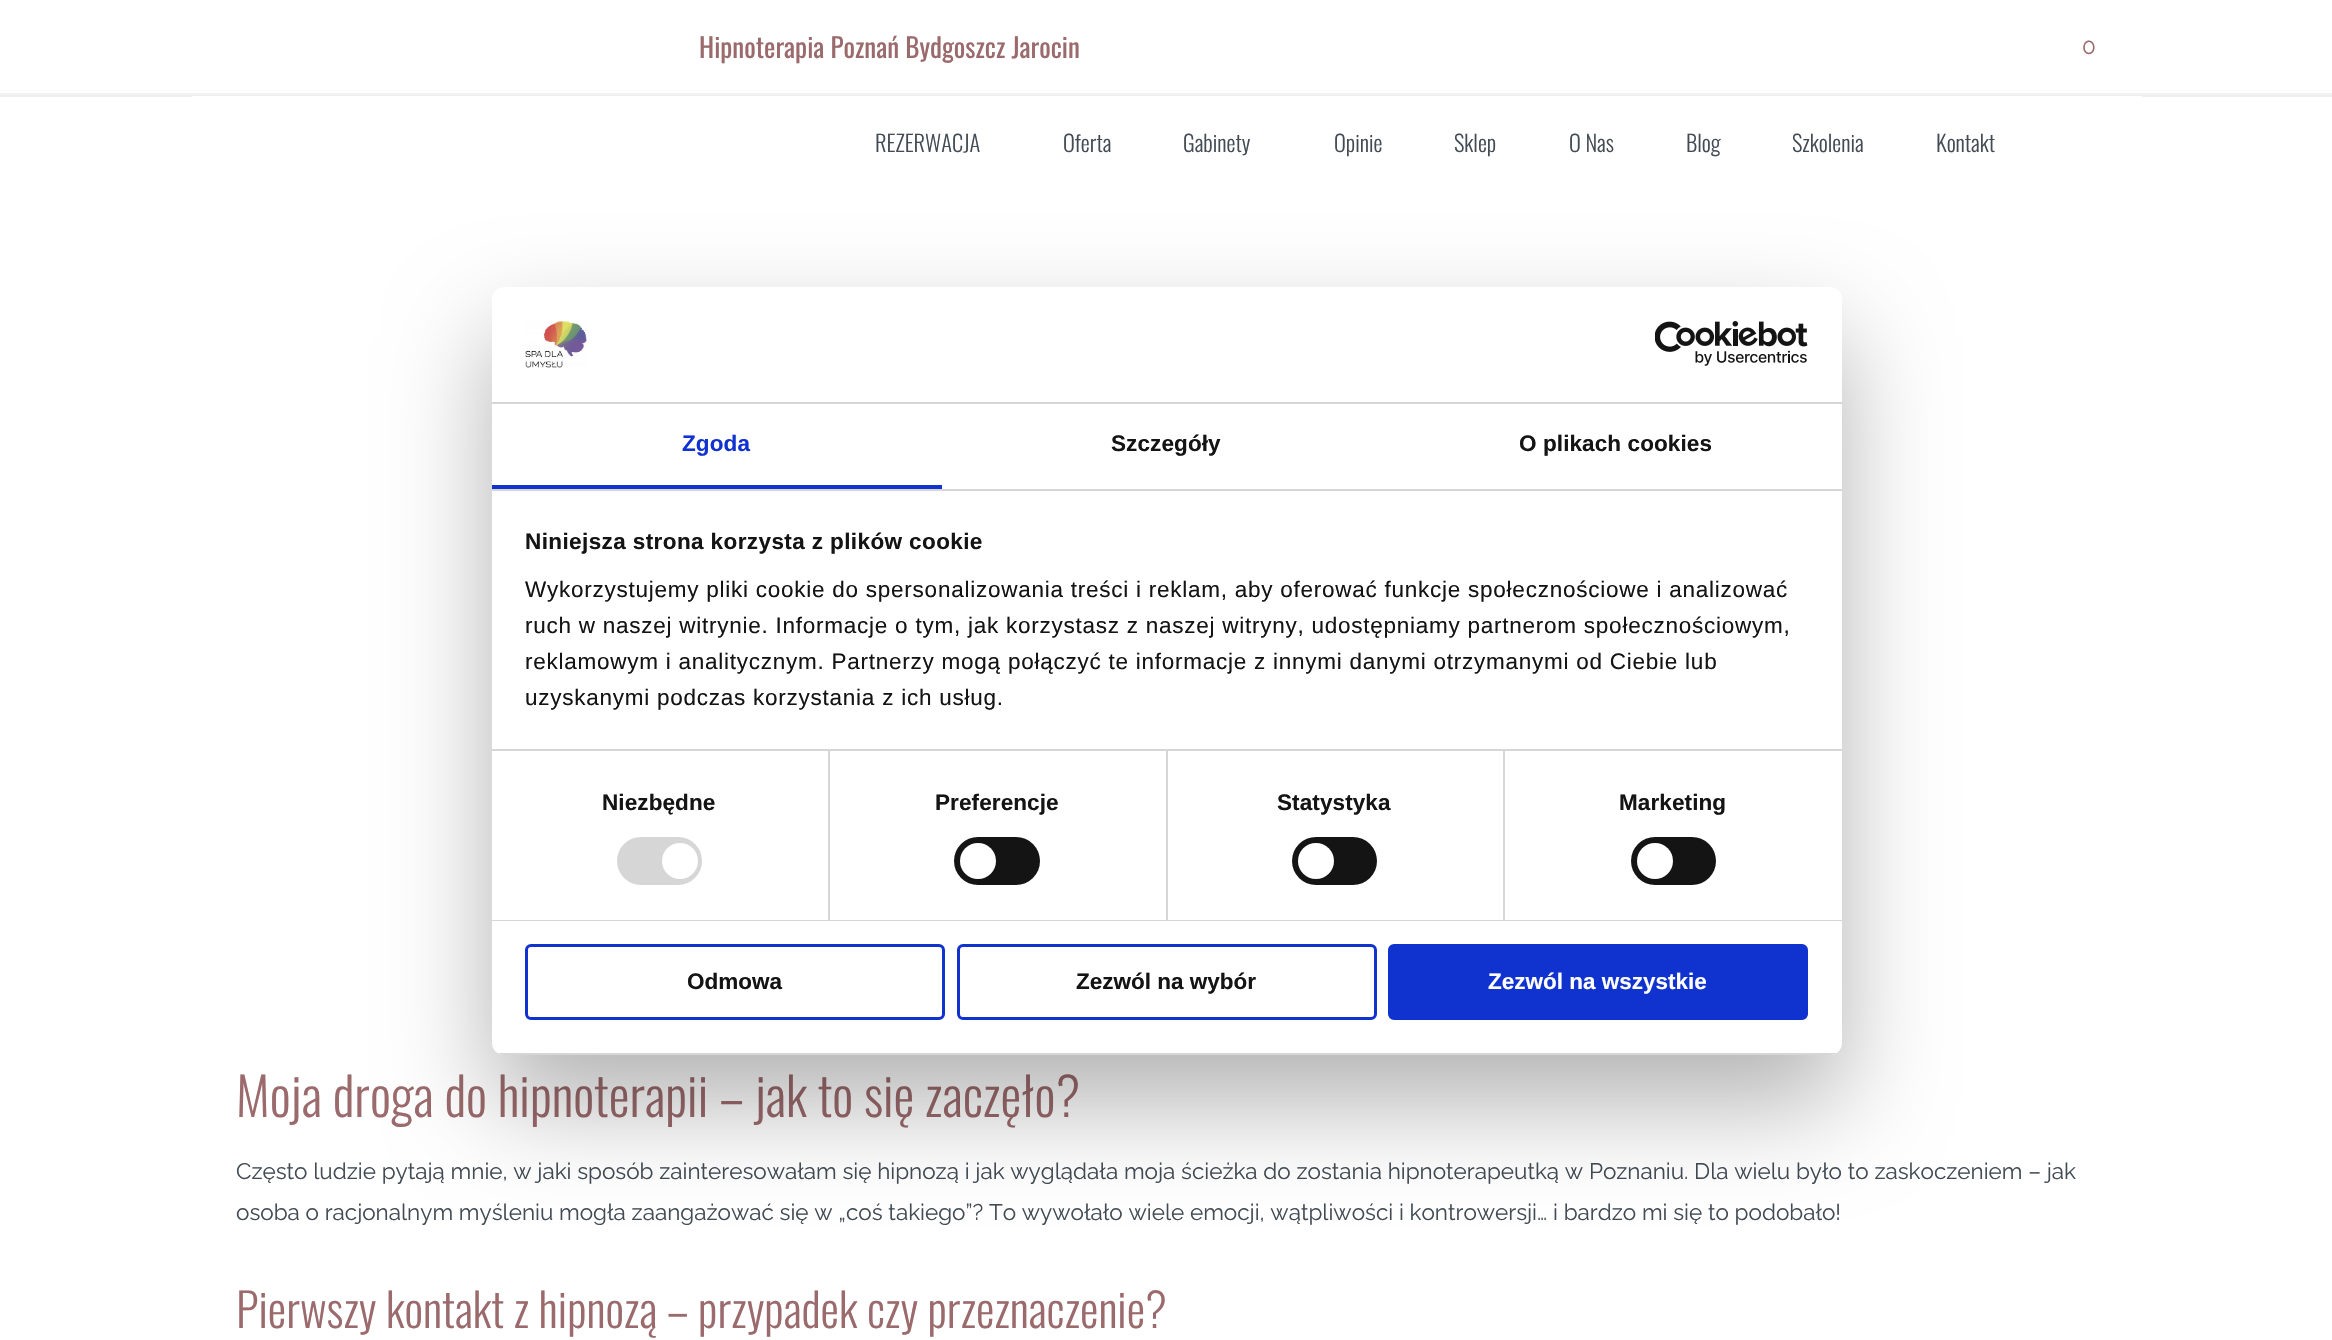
static SkFont makeFont(const char* family, int weight, float size, bool italic = false) {
  SkFontStyle style(weight, SkFontStyle::kNormal_Width,
    italic ? SkFontStyle::kItalic_Slant : SkFontStyle::kUpright_Slant);
  SkFont result(fontMgr->matchFamilyStyle(family, style), size);
  result.setSubpixel(true);
  return result;
}

static void text(SkCanvas* c, const char* s, float x, float y, const SkFont& font, SkColor color) {
  SkPaint ink(SkColor4f::FromColor(color));
  ink.setAntiAlias(true);
  c->drawString(s, x, y, font, ink);
}

static void spacedText(SkCanvas* c, const char* s, float x, float y, const SkFont& font, const SkPaint& ink, float letter, float word) {
  std::vector<SkGlyphID> glyphs(font.countText(s, strlen(s), SkTextEncoding::kUTF8));
  std::vector<float> xs(glyphs.size());
  font.textToGlyphs(s, strlen(s), SkTextEncoding::kUTF8, glyphs);
  font.getXPos(glyphs, xs, x);
  float extra = 0;
  for (size_t i = 0; i < glyphs.size(); i++) {
    xs[i] += extra;
    extra += letter + word * (glyphs[i] == font.unicharToGlyph(' '));
  }
  c->drawTextBlob(SkTextBlob::MakeFromPosHGlyphs(glyphs, xs, y, font), 0, 0, ink);
}

static void box(SkCanvas* c, float l, float t, float r, float b, SkColor color) {
  SkPaint ink(SkColor4f::FromColor(color));
  ink.setAntiAlias(true);
  c->drawRect(SkRect::MakeLTRB(l, t, r, b), ink);
}

static void roundBox(SkCanvas* c, float l, float t, float r, float b, float radius, SkColor color) {
  SkPaint ink(SkColor4f::FromColor(color));
  ink.setAntiAlias(true);
  c->drawRoundRect(SkRect::MakeLTRB(l, t, r, b), radius, radius, ink);
}

static void picture(SkCanvas* c, const char* path, float l, float t, float r, float b) {
  auto image = SkImages::DeferredFromEncodedData(SkData::MakeFromFileName(path));
  c->drawImageRect(image, SkRect::MakeLTRB(l, t, r, b), SkSamplingOptions());
}

void draw(SkCanvas* c) {
  SkPaint paint;
  paint.setAntiAlias(true);
  c->clear(0xffffffff);
  box(c, 0, 95, 2332, 97, 0xffeeeeee);
  box(c, 0, 93, 2332, 95, 0xfff2f2f2);
  SkFont face1 = makeFont("Oswald", 400, 27);
  text(c, "Hipnoterapia Poznań Bydgoszcz Jarocin", 699, 58, face1, 0xff9b6a6c);
  SkFont face2 = makeFont("Raleway", 400, 22.5f);
  text(c, "0", 2082, 54, face2, 0xff9b6a6c);
  SkFont face3 = makeFont("Oswald", 300, 22.5f);
  text(c, "REZERWACJA", 875, 152, face3, 0xff424b54);
  text(c, "Oferta", 1063, 152, face3, 0xff424b54);
  text(c, "Gabinety", 1183, 152, face3, 0xff424b54);
  text(c, "Opinie", 1334, 152, face3, 0xff424b54);
  text(c, "Sklep", 1454, 152, face3, 0xff424b54);
  text(c, "O Nas", 1569, 152, face3, 0xff424b54);
  text(c, "Blog", 1686, 152, face3, 0xff424b54);
  text(c, "Szkolenia", 1792, 152, face3, 0xff424b54);
  text(c, "Kontakt", 1936, 152, face3, 0xff424b54);
  box(c, 192, 96, 2142, 97, 0xffffffff);
  SkFont face4 = makeFont("Oswald", 300, 52.4f);
  text(c, "Moja droga do hipnoterapii – jak to się zaczęło?", 236, 1117, face4, 0xff9b6a6c);
  text(c, "Często ludzie pytają mnie, w jaki sposób zainteresowałam się hipnozą i jak wyglądała moja ścieżka do zostania hipnoterapeutką w Poznaniu. Dla wielu było to zaskoczeniem – jak", 236, 1179, face2, 0xff424b54);
  text(c, "osoba o racjonalnym myśleniu mogła zaangażować się w „coś takiego”? To wywołało wiele emocji, wątpliwości i kontrowersji… i bardzo mi się to podobało!", 236, 1220, face2, 0xff424b54);
  SkFont face5 = makeFont("Oswald", 300, 46.35f);
  text(c, "Pierwszy kontakt z hipnozą – przypadek czy przeznaczenie?", 236, 1328, face5, 0xff9b6a6c);
  paint.setColor(0x4d000000);
  paint.setMaskFilter(SkMaskFilter::MakeBlur(kNormal_SkBlurStyle, 51));
  c->drawRoundRect(SkRect::MakeLTRB(492, 335, 1842, 1103), 12, 12, paint);
  paint.setMaskFilter(nullptr);
  roundBox(c, 492, 287, 1842, 1055, 12, 0xffffffff);
  box(c, 492, 402, 1842, 404, 0xffd6d6d6);
  picture(c, "img_01.png", 525, 321, 587, 368);
  picture(c, "img_02.png", 1655, 321, 1808, 366);
  box(c, 492, 489, 1842, 491, 0xffd6d6d6);
  box(c, 492, 485, 942, 489, 0xff1032cf);
  SkFont face6 = makeFont("Liberation Sans", 700, 22.5f);
  paint.setColor(0xff1032cf);
  spacedText(c, "Zgoda", 682, 451, face6, paint, 0.1f, 0);
  paint.setColor(0xff141414);
  spacedText(c, "Szczegóły", 1111, 451, face6, paint, 0.1f, 0);
  spacedText(c, "O plikach cookies", 1519, 451, face6, paint, 0.1f, 0);
  box(c, 828, 750, 830, 920, 0xffd6d6d6);
  box(c, 1166, 750, 1168, 920, 0xffd6d6d6);
  box(c, 1503, 750, 1505, 920, 0xffd6d6d6);
  box(c, 492, 749, 1842, 751, 0xffd6d6d6);
  spacedText(c, "Niniejsza strona korzysta z plików cookie", 525, 549, face6, paint, 0.4f, 0);
  SkFont face7 = makeFont("Liberation Sans", 400, 22.5f);
  spacedText(c, "Wykorzystujemy pliki cookie do spersonalizowania treści i reklam, aby oferować funkcje społecznościowe i analizować", 525, 597, face7, paint, 0.75f, 0);
  spacedText(c, "ruch w naszej witrynie. Informacje o tym, jak korzystasz z naszej witryny, udostępniamy partnerom społecznościowym,", 525, 633, face7, paint, 0.75f, 0);
  spacedText(c, "reklamowym i analitycznym. Partnerzy mogą połączyć te informacje z innymi danymi otrzymanymi od Ciebie lub", 525, 669, face7, paint, 0.75f, 0);
  spacedText(c, "uzyskanymi podczas korzystania z ich usług.", 525, 705, face7, paint, 0.75f, 0);
  box(c, 492, 920, 1842, 921, 0xffd6d6d6);
  spacedText(c, "Niezbędne", 602, 810, face6, paint, 0.1f, 0);
  roundBox(c, 617, 837, 702, 885, 24, 0xffd6d6d6);
  paint.setColor(0xffffffff);
  c->drawCircle(680, 861, 18, paint);
  paint.setColor(0xff141414);
  spacedText(c, "Preferencje", 935, 810, face6, paint, 0.1f, 0);
  roundBox(c, 954, 837, 1040, 885, 24, 0xff141414);
  paint.setColor(0xffffffff);
  c->drawCircle(978, 861, 18, paint);
  paint.setColor(0xff141414);
  spacedText(c, "Statystyka", 1277, 810, face6, paint, 0.1f, 0);
  roundBox(c, 1292, 837, 1377, 885, 24, 0xff141414);
  paint.setColor(0xffffffff);
  c->drawCircle(1316, 861, 18, paint);
  paint.setColor(0xff141414);
  spacedText(c, "Marketing", 1619, 810, face6, paint, 0.1f, 0);
  roundBox(c, 1631, 837, 1716, 885, 24, 0xff141414);
  paint.setColor(0xffffffff);
  c->drawCircle(1655, 861, 18, paint);
  c->save();
  c->clipPath(SkPathBuilder().moveTo(504, 287).lineTo(1830, 287).cubicTo(1836.5f, 287, 1842, 292.5f, 1842, 299).lineTo(1842, 1043).cubicTo(1842, 1049.5f, 1836.5f, 1055, 1830, 1055).lineTo(504, 1055).cubicTo(497.5f, 1055, 492, 1049.5f, 492, 1043).lineTo(492, 299).cubicTo(492, 292.5f, 497.5f, 287, 504, 287).close().detach(), true);
  box(c, 492, 1053, 1842, 1055, 0xffd6d6d6);
  c->restore();
  paint.setStyle(SkPaint::kStroke_Style);
  paint.setStrokeWidth(3);
  paint.setColor(0xff1032cf);
  c->drawRoundRect(SkRect::MakeLTRB(526.5f, 945.5f, 943.5f, 1018.5f), 4.5f, 4.5f, paint);
  text(c, "Odmowa", 687, 989, face6, 0xff141414);
  c->drawRoundRect(SkRect::MakeLTRB(958.5f, 945.5f, 1375.5f, 1018.5f), 4.5f, 4.5f, paint);
  text(c, "Zezwól na wybór", 1076, 989, face6, 0xff141414);
  paint.setStyle(SkPaint::kFill_Style);
  c->drawRoundRect(SkRect::MakeLTRB(1389.5f, 945.5f, 1806.5f, 1018.5f), 4.5f, 4.5f, paint);
  paint.setStyle(SkPaint::kStroke_Style);
  c->drawRoundRect(SkRect::MakeLTRB(1389.5f, 945.5f, 1806.5f, 1018.5f), 4.5f, 4.5f, paint);
  text(c, "Zezwól na wszystkie", 1488, 989, face6, 0xffffffff);
}
